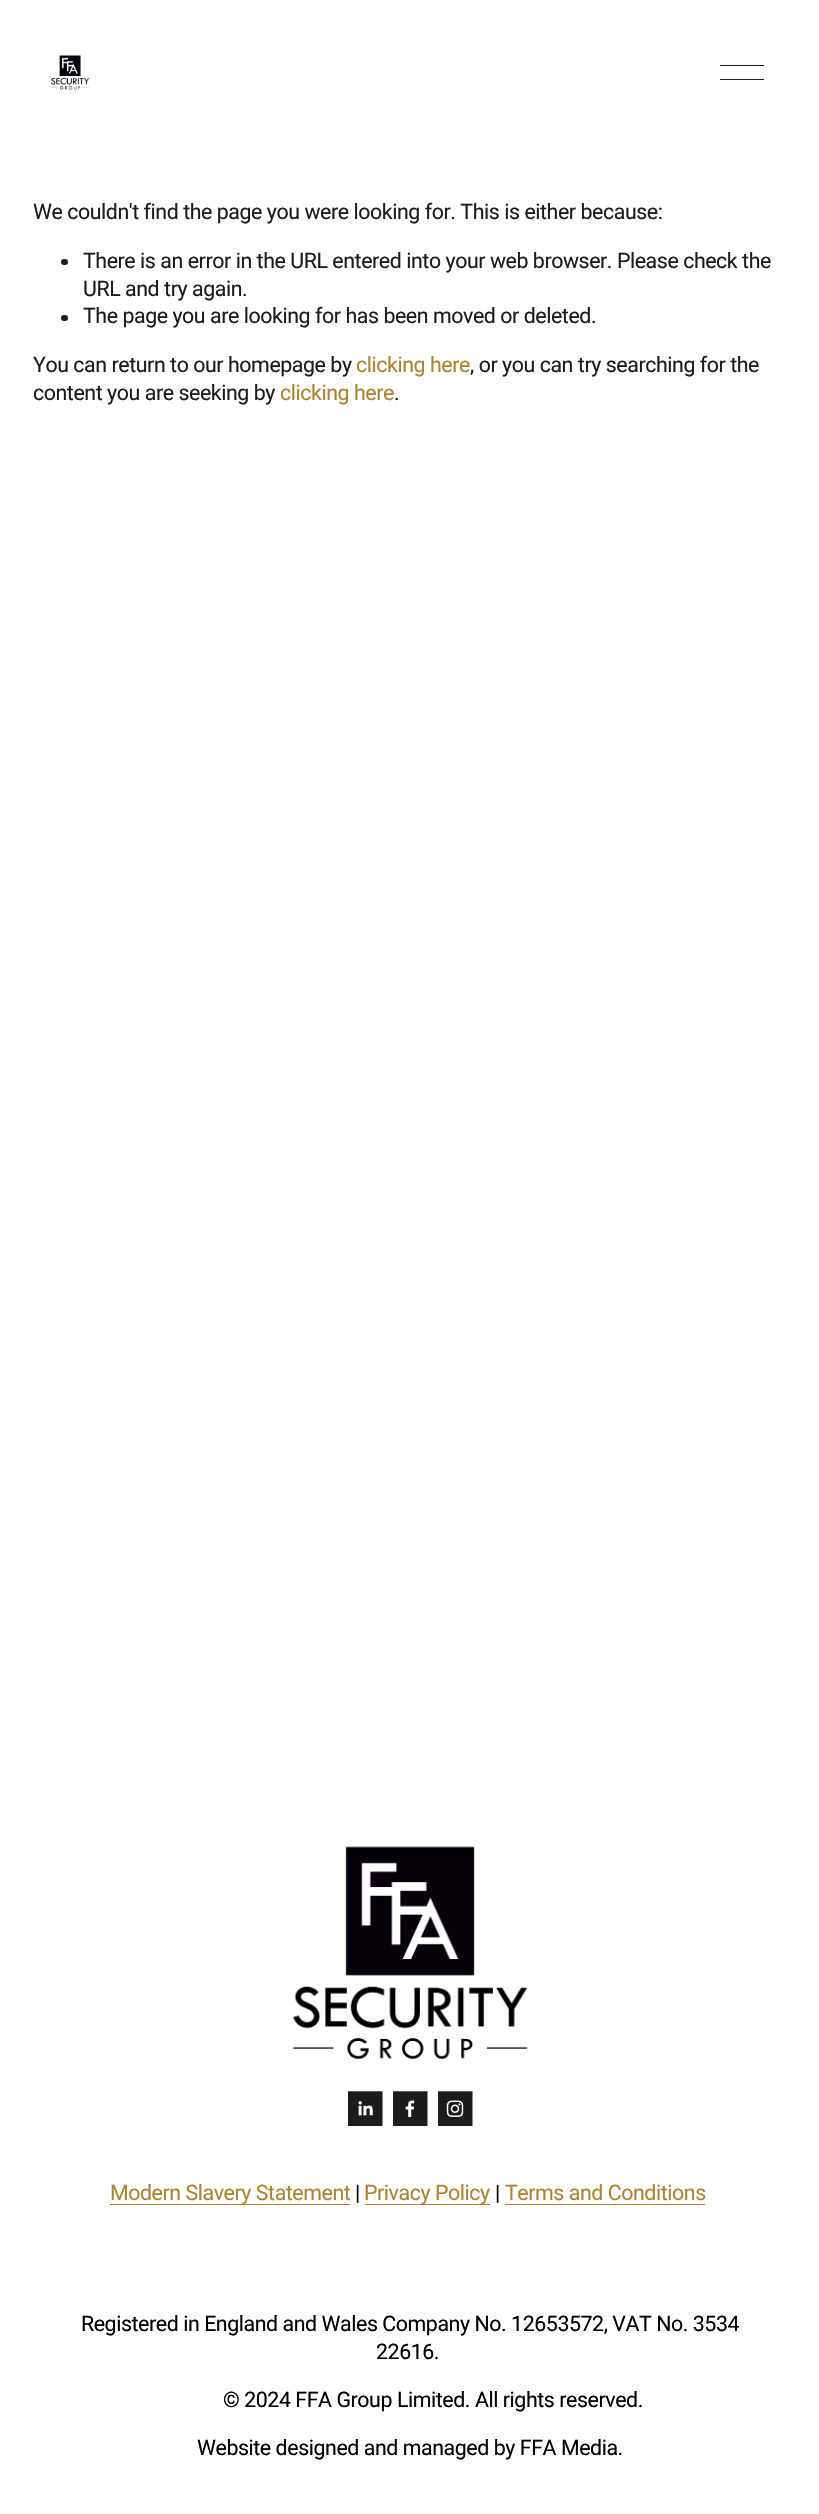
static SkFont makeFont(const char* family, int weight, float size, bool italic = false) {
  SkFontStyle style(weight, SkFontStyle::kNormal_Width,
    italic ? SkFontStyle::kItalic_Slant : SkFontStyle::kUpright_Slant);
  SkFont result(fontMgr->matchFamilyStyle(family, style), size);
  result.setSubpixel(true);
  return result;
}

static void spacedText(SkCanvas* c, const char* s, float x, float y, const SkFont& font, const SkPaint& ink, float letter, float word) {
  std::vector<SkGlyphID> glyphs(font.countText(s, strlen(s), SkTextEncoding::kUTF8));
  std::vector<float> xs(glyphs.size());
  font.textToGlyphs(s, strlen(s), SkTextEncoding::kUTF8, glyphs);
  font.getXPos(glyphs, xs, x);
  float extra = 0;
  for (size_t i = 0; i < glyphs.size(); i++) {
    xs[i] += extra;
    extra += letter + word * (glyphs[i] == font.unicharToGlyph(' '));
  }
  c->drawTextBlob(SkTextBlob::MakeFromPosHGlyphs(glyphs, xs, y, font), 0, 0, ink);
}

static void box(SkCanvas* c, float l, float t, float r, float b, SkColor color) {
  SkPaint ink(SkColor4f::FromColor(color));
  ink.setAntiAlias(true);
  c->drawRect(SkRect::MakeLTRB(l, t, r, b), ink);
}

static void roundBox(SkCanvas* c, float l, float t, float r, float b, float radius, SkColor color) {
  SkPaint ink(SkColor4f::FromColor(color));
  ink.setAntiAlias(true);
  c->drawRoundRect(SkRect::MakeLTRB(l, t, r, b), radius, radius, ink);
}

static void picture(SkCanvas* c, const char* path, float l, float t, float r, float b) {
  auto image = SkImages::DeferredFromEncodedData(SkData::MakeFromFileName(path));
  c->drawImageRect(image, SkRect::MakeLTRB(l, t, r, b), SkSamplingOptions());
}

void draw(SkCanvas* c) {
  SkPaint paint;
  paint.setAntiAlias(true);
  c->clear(0xffffffff);
  picture(c, "img_01.png", 51, 55, 90, 90);
  box(c, 720, 65, 764, 66, 0xff1c1c1c);
  box(c, 720, 79, 764, 80, 0xff1c1c1c);
  SkFont face1 = makeFont("Roboto", 400, 21.35f);
  paint.setColor(0xff1c1c1c);
  spacedText(c, "We couldn't find the page you were looking for. This is either because:", 33, 219, face1, paint, -0.43f, 0);
  roundBox(c, 61, 259, 68, 265, 3, 0xff1c1c1c);
  spacedText(c, "There is an error in the URL entered into your web browser. Please check the", 83, 268, face1, paint, -0.43f, 0);
  spacedText(c, "URL and try again.", 83, 296, face1, paint, -0.43f, 0);
  roundBox(c, 61, 315, 68, 321, 3, 0xff1c1c1c);
  spacedText(c, "The page you are looking for has been moved or deleted.", 83, 323, face1, paint, -0.43f, 0);
  spacedText(c, "You can return to our homepage by", 33, 372, face1, paint, -0.43f, 0);
  paint.setColor(0xffad8330);
  spacedText(c, "clicking here", 356, 372, face1, paint, -0.43f, 0);
  paint.setColor(0xff1c1c1c);
  spacedText(c, ", or you can try searching for the", 470, 372, face1, paint, -0.43f, 0);
  spacedText(c, "content you are seeking by", 33, 400, face1, paint, -0.43f, 0);
  paint.setColor(0xffad8330);
  spacedText(c, "clicking here", 280, 400, face1, paint, -0.43f, 0);
  paint.setColor(0xff1c1c1c);
  spacedText(c, ".", 394, 400, face1, paint, -0.43f, 0);
  picture(c, "img_02.png", 292, 1846, 528, 2059);
  picture(c, "img_03.png", 348, 2091, 383, 2126);
  picture(c, "img_04.png", 393, 2091, 428, 2126);
  picture(c, "img_05.png", 438, 2091, 473, 2126);
  box(c, 110, 2204, 350, 2205, 0xffad8330);
  paint.setColor(0xffad8330);
  spacedText(c, "Modern Slavery Statement", 110, 2200, face1, paint, -0.43f, 0);
  paint.setColor(0xff000000);
  spacedText(c, "|", 355, 2200, face1, paint, -0.43f, 0);
  box(c, 365, 2204, 490, 2205, 0xffad8330);
  paint.setColor(0xffad8330);
  spacedText(c, "Privacy Policy", 364, 2200, face1, paint, -0.43f, 0);
  paint.setColor(0xff000000);
  spacedText(c, "|", 495, 2200, face1, paint, -0.43f, 0);
  paint.setColor(0xffad8330);
  spacedText(c, "Terms and Conditions", 505, 2200, face1, paint, -0.43f, 0);
  box(c, 505, 2204, 705, 2205, 0xffad8330);
  paint.setColor(0xff000000);
  spacedText(c, "Registered in England and Wales Company No. 12653572, VAT No. 3534", 81, 2331, face1, paint, -0.43f, 0);
  spacedText(c, "22616.", 376, 2359, face1, paint, -0.43f, 0);
  spacedText(c, "© 2024 FFA Group Limited. All rights reserved.", 223, 2407, face1, paint, -0.43f, 0);
  spacedText(c, "Website designed and managed by FFA Media.", 197, 2455, face1, paint, -0.43f, 0);
}
